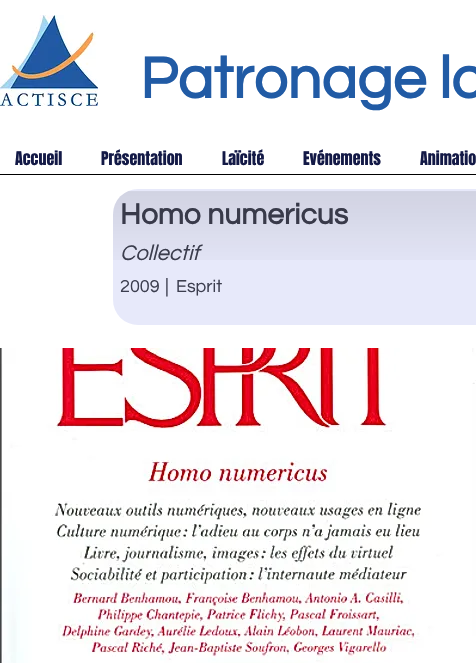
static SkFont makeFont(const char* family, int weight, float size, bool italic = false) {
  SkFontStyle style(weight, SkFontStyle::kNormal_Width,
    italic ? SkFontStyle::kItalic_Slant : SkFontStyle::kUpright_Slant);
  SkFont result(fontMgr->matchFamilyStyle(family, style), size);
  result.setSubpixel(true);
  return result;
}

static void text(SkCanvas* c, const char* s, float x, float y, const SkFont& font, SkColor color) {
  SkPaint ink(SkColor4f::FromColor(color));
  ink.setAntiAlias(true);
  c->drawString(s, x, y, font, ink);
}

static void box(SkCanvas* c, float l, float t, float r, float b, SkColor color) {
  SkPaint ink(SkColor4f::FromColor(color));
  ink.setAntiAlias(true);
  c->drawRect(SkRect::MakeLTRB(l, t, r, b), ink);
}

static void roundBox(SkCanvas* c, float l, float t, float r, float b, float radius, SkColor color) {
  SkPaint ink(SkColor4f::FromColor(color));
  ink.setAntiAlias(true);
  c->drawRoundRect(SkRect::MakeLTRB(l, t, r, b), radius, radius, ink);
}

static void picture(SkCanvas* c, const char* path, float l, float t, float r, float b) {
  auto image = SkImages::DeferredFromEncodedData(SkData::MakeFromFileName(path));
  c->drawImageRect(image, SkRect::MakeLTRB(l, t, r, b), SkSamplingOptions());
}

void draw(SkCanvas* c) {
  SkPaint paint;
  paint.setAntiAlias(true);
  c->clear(0xffffffff);
  picture(c, "img_01.png", 0, 15, 98, 106);
  SkFont face1 = makeFont("Questrial", 700, 60);
  text(c, "Patronage la", 140, 98, face1, 0xff215ba5);
  SkFont face2 = makeFont("Anton", 400, 16);
  text(c, "Accueil", 15, 165, face2, 0xff131946);
  text(c, "Présentation", 101, 165, face2, 0xff131946);
  text(c, "Laïcité", 222, 165, face2, 0xff131946);
  text(c, "Evénements", 303, 165, face2, 0xff131946);
  text(c, "Animatio", 420, 165, face2, 0xff131946);
  box(c, 0, 174, 476, 175, 0xff000000);
  SkFont face3 = makeFont("Questrial", 700, 30);
  text(c, "Homo numericus", 120, 224, face3, 0xff000000);
  SkFont face4 = makeFont("Questrial", 400, 22, true);
  text(c, "Collectif", 120, 260, face4, 0xff000000);
  SkFont face5 = makeFont("Questrial", 400, 18);
  text(c, "2009", 120, 292, face5, 0xff000000);
  SkFont face6 = makeFont("Questrial", 400, 20);
  text(c, "|", 165, 293, face6, 0xff000000);
  text(c, "Esprit", 176, 292, face5, 0xff000000);
  roundBox(c, 113, 189, 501, 325, 25, 0x54b5bcf0);
  picture(c, "img_02.png", 113, 191, 476, 260);
  picture(c, "img_03.png", 0, 348, 476, 663);
}
